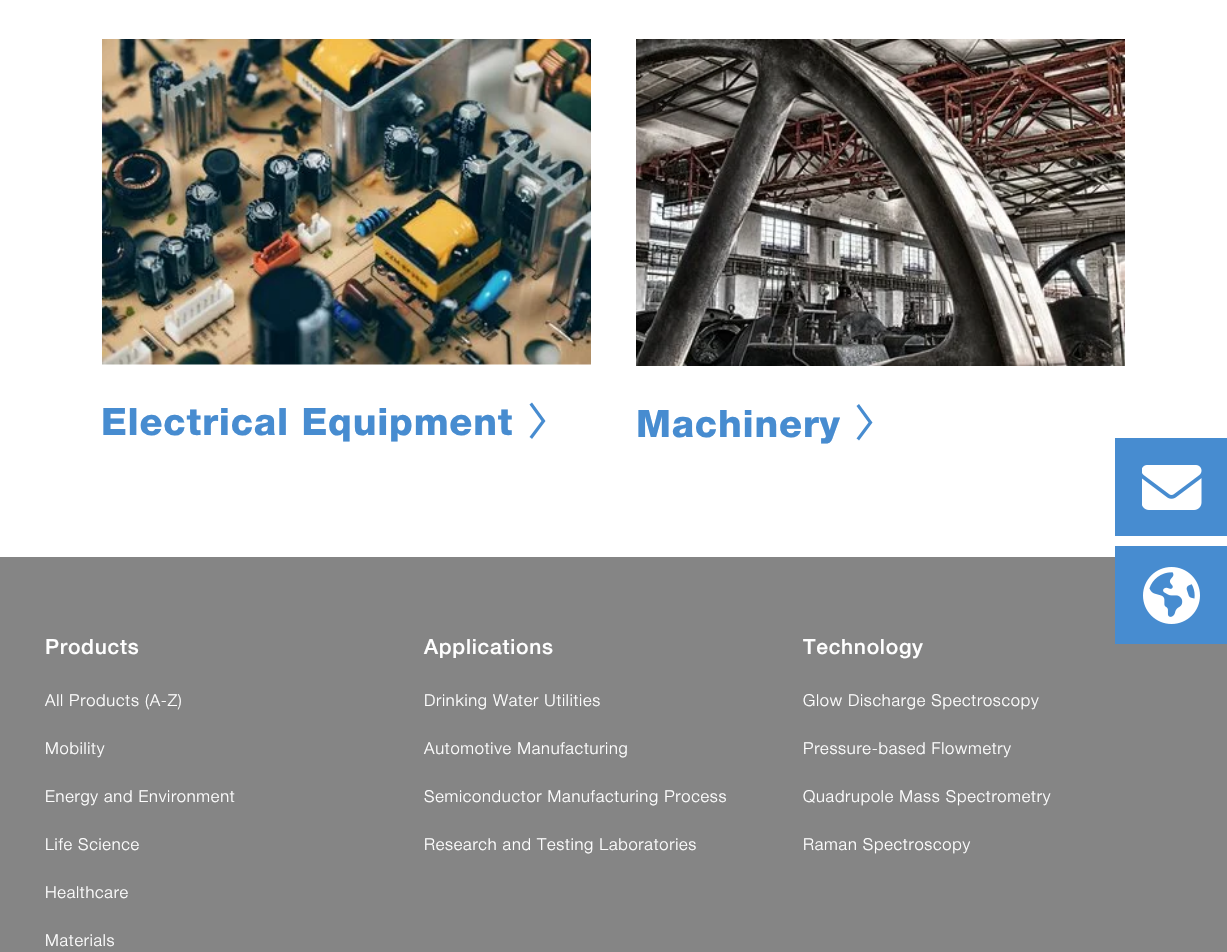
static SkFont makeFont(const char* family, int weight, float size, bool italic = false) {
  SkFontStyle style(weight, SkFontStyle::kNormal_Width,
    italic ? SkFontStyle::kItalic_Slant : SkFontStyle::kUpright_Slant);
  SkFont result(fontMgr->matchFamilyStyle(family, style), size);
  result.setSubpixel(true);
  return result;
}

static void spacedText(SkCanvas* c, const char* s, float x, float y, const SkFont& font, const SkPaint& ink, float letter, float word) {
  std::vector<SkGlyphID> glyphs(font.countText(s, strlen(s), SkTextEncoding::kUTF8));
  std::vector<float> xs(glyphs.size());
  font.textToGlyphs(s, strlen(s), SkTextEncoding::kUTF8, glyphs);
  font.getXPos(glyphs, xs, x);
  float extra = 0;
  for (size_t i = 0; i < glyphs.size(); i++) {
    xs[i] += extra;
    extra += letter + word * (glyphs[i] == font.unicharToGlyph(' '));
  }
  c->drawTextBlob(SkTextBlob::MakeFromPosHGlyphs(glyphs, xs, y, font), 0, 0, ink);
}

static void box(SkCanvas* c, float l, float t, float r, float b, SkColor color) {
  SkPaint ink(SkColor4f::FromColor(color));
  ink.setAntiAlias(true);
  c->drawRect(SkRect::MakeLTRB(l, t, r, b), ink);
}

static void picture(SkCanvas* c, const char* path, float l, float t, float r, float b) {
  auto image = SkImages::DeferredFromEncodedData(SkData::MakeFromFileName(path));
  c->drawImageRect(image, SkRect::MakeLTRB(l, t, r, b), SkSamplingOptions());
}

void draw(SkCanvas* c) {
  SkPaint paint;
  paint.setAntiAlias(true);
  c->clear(0xffffffff);
  picture(c, "img_01.png", 102, 39, 591, 365);
  SkFont face1 = makeFont("Helvetica Neue", 700, 37.75f);
  paint.setColor(0xff478cd0);
  spacedText(c, "Electrical Equipment", 101, 435, face1, paint, 0.75f, 0);
  c->drawPath(SkPathBuilder().moveTo(531, 438).lineTo(532, 439).lineTo(545.5f, 421).lineTo(532, 402.5f).lineTo(529.5f, 404.5f).lineTo(541.5f, 421).lineTo(529.5f, 437).close().detach(), paint);
  picture(c, "img_02.png", 636, 39, 1125, 366);
  spacedText(c, "Machinery", 636, 437, face1, paint, 0.75f, 0);
  c->drawPath(SkPathBuilder().moveTo(858, 439.5f).lineTo(859, 440.5f).lineTo(872.5f, 422.5f).lineTo(859, 404).lineTo(856.5f, 406).lineTo(868.5f, 422.5f).lineTo(856.5f, 438.5f).close().detach(), paint);
  box(c, 1115, 438, 1227, 536, 0xff478cd0);
  picture(c, "img_03.png", 1142, 465, 1202, 510);
  box(c, 0, 557, 1227, 952, 0xff858585);
  box(c, 1115, 546, 1227, 644, 0xff478cd0);
  picture(c, "img_04.png", 1143, 567, 1200, 624);
  SkFont face2 = makeFont("Helvetica Neue", 500, 21);
  paint.setColor(0xffffffff);
  spacedText(c, "Products", 45, 654, face2, paint, 0.75f, 0);
  SkFont face3 = makeFont("Helvetica Neue", 300, 16.5f);
  spacedText(c, "All Products (A-Z)", 45, 706, face3, paint, 0.75f, 0);
  spacedText(c, "Mobility", 45, 754, face3, paint, 0.75f, 0);
  spacedText(c, "Energy and Environment", 45, 802, face3, paint, 0.75f, 0);
  spacedText(c, "Life Science", 45, 850, face3, paint, 0.75f, 0);
  spacedText(c, "Healthcare", 45, 898, face3, paint, 0.75f, 0);
  spacedText(c, "Materials", 45, 946, face3, paint, 0.75f, 0);
  spacedText(c, "Applications", 424, 654, face2, paint, 0.75f, 0);
  spacedText(c, "Drinking Water Utilities", 424, 706, face3, paint, 0.75f, 0);
  spacedText(c, "Automotive Manufacturing", 424, 754, face3, paint, 0.75f, 0);
  spacedText(c, "Semiconductor Manufacturing Process", 424, 802, face3, paint, 0.75f, 0);
  spacedText(c, "Research and Testing Laboratories", 424, 850, face3, paint, 0.75f, 0);
  spacedText(c, "Technology", 803, 654, face2, paint, 0.75f, 0);
  spacedText(c, "Glow Discharge Spectroscopy", 803, 706, face3, paint, 0.75f, 0);
  spacedText(c, "Pressure-based Flowmetry", 803, 754, face3, paint, 0.75f, 0);
  spacedText(c, "Quadrupole Mass Spectrometry", 803, 802, face3, paint, 0.75f, 0);
  spacedText(c, "Raman Spectroscopy", 803, 850, face3, paint, 0.75f, 0);
}
